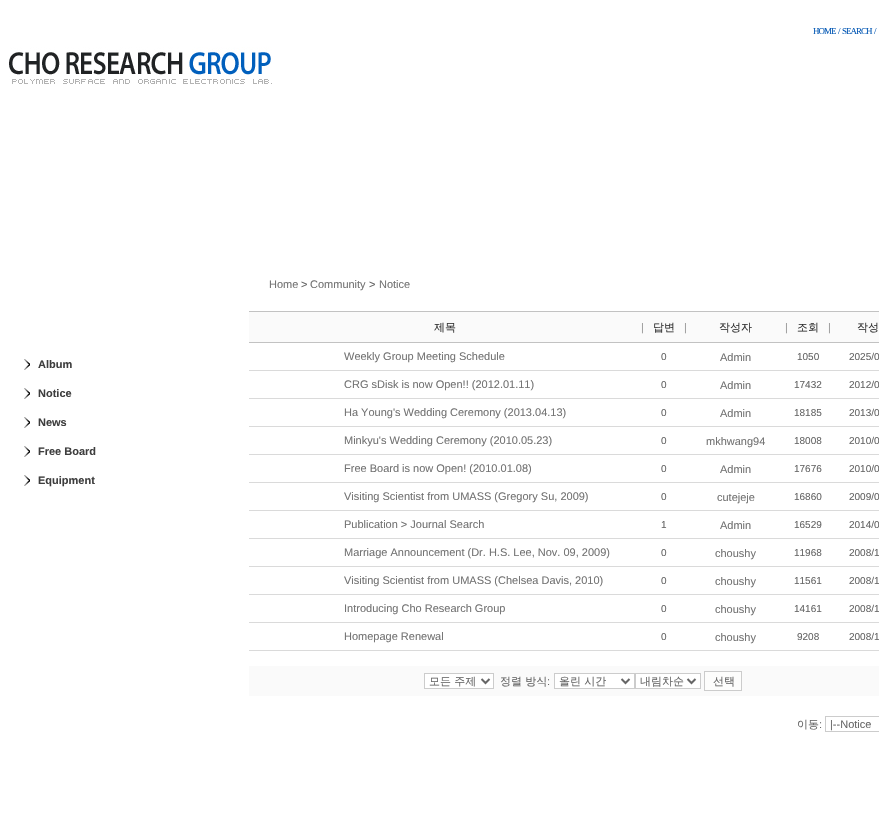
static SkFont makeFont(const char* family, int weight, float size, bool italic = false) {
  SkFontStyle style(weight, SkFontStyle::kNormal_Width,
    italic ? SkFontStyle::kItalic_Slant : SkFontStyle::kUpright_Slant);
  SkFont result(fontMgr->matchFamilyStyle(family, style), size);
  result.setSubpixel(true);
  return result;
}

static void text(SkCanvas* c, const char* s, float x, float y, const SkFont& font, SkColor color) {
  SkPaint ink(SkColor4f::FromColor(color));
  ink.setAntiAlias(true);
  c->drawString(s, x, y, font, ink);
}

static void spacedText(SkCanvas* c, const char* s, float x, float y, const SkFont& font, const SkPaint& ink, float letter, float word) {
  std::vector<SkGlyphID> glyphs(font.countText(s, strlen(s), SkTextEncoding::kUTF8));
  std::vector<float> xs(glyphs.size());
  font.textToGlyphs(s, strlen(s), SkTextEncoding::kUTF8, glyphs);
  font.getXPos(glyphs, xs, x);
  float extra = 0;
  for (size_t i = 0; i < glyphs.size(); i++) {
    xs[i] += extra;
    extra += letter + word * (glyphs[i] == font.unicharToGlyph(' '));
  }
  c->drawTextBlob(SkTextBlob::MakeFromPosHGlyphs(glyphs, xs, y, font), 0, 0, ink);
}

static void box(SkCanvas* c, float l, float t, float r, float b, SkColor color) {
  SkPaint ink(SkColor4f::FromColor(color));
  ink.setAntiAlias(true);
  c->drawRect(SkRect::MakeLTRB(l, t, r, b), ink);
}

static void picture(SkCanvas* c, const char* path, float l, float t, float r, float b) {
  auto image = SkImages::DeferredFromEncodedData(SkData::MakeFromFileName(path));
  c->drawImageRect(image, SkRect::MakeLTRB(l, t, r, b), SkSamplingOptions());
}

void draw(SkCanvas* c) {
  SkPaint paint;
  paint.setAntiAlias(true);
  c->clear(0xffffffff);
  SkFont face1 = makeFont("Liberation Serif", 400, 9);
  paint.setColor(0xff085bb6);
  spacedText(c, "HOME", 813, 34, face1, paint, -1, 0);
  spacedText(c, "/", 838, 34, face1, paint, -1, 0);
  spacedText(c, "SEARCH", 842, 34, face1, paint, -1, 0);
  spacedText(c, "/", 874, 34, face1, paint, -1, 0);
  picture(c, "img_01.png", 9, 47, 272, 84);
  picture(c, "img_02.png", 24, 359, 30, 370);
  SkFont face2 = makeFont("Liberation Sans", 700, 11);
  text(c, "Album", 38, 368, face2, 0xff3e3e3e);
  picture(c, "img_02.png", 24, 388, 30, 399);
  text(c, "Notice", 38, 397, face2, 0xff3e3e3e);
  picture(c, "img_02.png", 24, 417, 30, 428);
  text(c, "News", 38, 426, face2, 0xff3e3e3e);
  picture(c, "img_02.png", 24, 446, 30, 457);
  text(c, "Free Board", 38, 455, face2, 0xff3e3e3e);
  picture(c, "img_02.png", 24, 475, 30, 486);
  text(c, "Equipment", 38, 484, face2, 0xff3e3e3e);
  SkFont face3 = makeFont("Liberation Sans", 400, 11);
  text(c, "Home", 269, 288, face3, 0xff737373);
  text(c, ">", 301, 288, face3, 0xff666666);
  text(c, "Community", 310, 288, face3, 0xff737373);
  text(c, ">", 369, 288, face3, 0xff666666);
  text(c, "Notice", 379, 288, face3, 0xff737373);
  box(c, 249, 311, 879, 312, 0xffc2c2c2);
  box(c, 249, 312, 879, 342, 0xfffafafa);
  SkFont face4 = makeFont("WenQuanYi Zen Hei", 500, 11);
  text(c, "제목", 434, 331, face4, 0xff333333);
  text(c, "|", 641, 331, face3, 0xff999999);
  text(c, "답변", 653, 331, face4, 0xff333333);
  text(c, "|", 684, 331, face3, 0xff999999);
  text(c, "작성자", 719, 331, face4, 0xff333333);
  text(c, "|", 785, 331, face3, 0xff999999);
  text(c, "조회", 797, 331, face4, 0xff333333);
  text(c, "|", 828, 331, face3, 0xff999999);
  text(c, "작성", 857, 331, face4, 0xff333333);
  box(c, 249, 342, 879, 343, 0xffc2c2c2);
  text(c, "Weekly Group Meeting Schedule", 344, 360, face3, 0xff737373);
  SkFont face5 = makeFont("Liberation Sans", 400, 10);
  text(c, "0", 661, 360, face5, 0xff666666);
  text(c, "Admin", 720, 361, face3, 0xff737373);
  text(c, "1050", 797, 360, face5, 0xff666666);
  text(c, "2025/0", 849, 360, face5, 0xff666666);
  box(c, 249, 370, 879, 371, 0xffdadada);
  text(c, "CRG sDisk is now Open!! (2012.01.11)", 344, 388, face3, 0xff737373);
  text(c, "0", 661, 388, face5, 0xff666666);
  text(c, "Admin", 720, 389, face3, 0xff737373);
  text(c, "17432", 794, 388, face5, 0xff666666);
  text(c, "2012/0", 849, 388, face5, 0xff666666);
  box(c, 249, 398, 879, 399, 0xffdadada);
  text(c, "Ha Young's Wedding Ceremony (2013.04.13)", 344, 416, face3, 0xff737373);
  text(c, "0", 661, 416, face5, 0xff666666);
  text(c, "Admin", 720, 417, face3, 0xff737373);
  text(c, "18185", 794, 416, face5, 0xff666666);
  text(c, "2013/0", 849, 416, face5, 0xff666666);
  box(c, 249, 426, 879, 427, 0xffdadada);
  text(c, "Minkyu's Wedding Ceremony (2010.05.23)", 344, 444, face3, 0xff737373);
  text(c, "0", 661, 444, face5, 0xff666666);
  text(c, "mkhwang94", 706, 445, face3, 0xff737373);
  text(c, "18008", 794, 444, face5, 0xff666666);
  text(c, "2010/0", 849, 444, face5, 0xff666666);
  box(c, 249, 454, 879, 455, 0xffdadada);
  text(c, "Free Board is now Open! (2010.01.08)", 344, 472, face3, 0xff737373);
  text(c, "0", 661, 472, face5, 0xff666666);
  text(c, "Admin", 720, 473, face3, 0xff737373);
  text(c, "17676", 794, 472, face5, 0xff666666);
  text(c, "2010/0", 849, 472, face5, 0xff666666);
  box(c, 249, 482, 879, 483, 0xffdadada);
  text(c, "Visiting Scientist from UMASS (Gregory Su, 2009)", 344, 500, face3, 0xff737373);
  text(c, "0", 661, 500, face5, 0xff666666);
  text(c, "cutejeje", 717, 501, face3, 0xff737373);
  text(c, "16860", 794, 500, face5, 0xff666666);
  text(c, "2009/0", 849, 500, face5, 0xff666666);
  box(c, 249, 510, 879, 511, 0xffdadada);
  text(c, "Publication > Journal Search", 344, 528, face3, 0xff737373);
  text(c, "1", 661, 528, face5, 0xff666666);
  text(c, "Admin", 720, 529, face3, 0xff737373);
  text(c, "16529", 794, 528, face5, 0xff666666);
  text(c, "2014/0", 849, 528, face5, 0xff666666);
  box(c, 249, 538, 879, 539, 0xffdadada);
  text(c, "Marriage Announcement (Dr. H.S. Lee, Nov. 09, 2009)", 344, 556, face3, 0xff737373);
  text(c, "0", 661, 556, face5, 0xff666666);
  text(c, "choushy", 715, 557, face3, 0xff737373);
  text(c, "11968", 794, 556, face5, 0xff666666);
  text(c, "2008/1", 849, 556, face5, 0xff666666);
  box(c, 249, 566, 879, 567, 0xffdadada);
  text(c, "Visiting Scientist from UMASS (Chelsea Davis, 2010)", 344, 584, face3, 0xff737373);
  text(c, "0", 661, 584, face5, 0xff666666);
  text(c, "choushy", 715, 585, face3, 0xff737373);
  text(c, "11561", 794, 584, face5, 0xff666666);
  text(c, "2008/1", 849, 584, face5, 0xff666666);
  box(c, 249, 594, 879, 595, 0xffdadada);
  text(c, "Introducing Cho Research Group", 344, 612, face3, 0xff737373);
  text(c, "0", 661, 612, face5, 0xff666666);
  text(c, "choushy", 715, 613, face3, 0xff737373);
  text(c, "14161", 794, 612, face5, 0xff666666);
  text(c, "2008/1", 849, 612, face5, 0xff666666);
  box(c, 249, 622, 879, 623, 0xffdadada);
  text(c, "Homepage Renewal", 344, 640, face3, 0xff737373);
  text(c, "0", 661, 640, face5, 0xff666666);
  text(c, "choushy", 715, 641, face3, 0xff737373);
  text(c, "9208", 797, 640, face5, 0xff666666);
  text(c, "2008/1", 849, 640, face5, 0xff666666);
  box(c, 249, 650, 879, 651, 0xffdadada);
  box(c, 249, 666, 879, 696, 0xfffafafa);
  paint.setColor(0xffffffff);
  c->drawRect(SkRect::MakeLTRB(424.5f, 673.5f, 493.5f, 688.5f), paint);
  paint.setStyle(SkPaint::kStroke_Style);
  paint.setStrokeWidth(1);
  paint.setColor(0xffcccccc);
  c->drawRect(SkRect::MakeLTRB(424.5f, 673.5f, 493.5f, 688.5f), paint);
  paint.setStrokeWidth(2);
  paint.setColor(0xff666666);
  c->drawPath(SkPathBuilder().moveTo(481.5f, 679).lineTo(485.5f, 683).lineTo(489.5f, 679).detach(), paint);
  text(c, "모든 주제", 429, 685, face4, 0xff666666);
  text(c, "정렬 방식", 500, 685, face4, 0xff666666);
  text(c, ":", 547, 685, face3, 0xff666666);
  paint.setStyle(SkPaint::kFill_Style);
  paint.setColor(0xffffffff);
  c->drawRect(SkRect::MakeLTRB(554.5f, 673.5f, 634.5f, 688.5f), paint);
  paint.setStyle(SkPaint::kStroke_Style);
  paint.setStrokeWidth(1);
  paint.setColor(0xffcccccc);
  c->drawRect(SkRect::MakeLTRB(554.5f, 673.5f, 634.5f, 688.5f), paint);
  paint.setStrokeWidth(2);
  paint.setColor(0xff666666);
  c->drawPath(SkPathBuilder().moveTo(621.5f, 679).lineTo(625.5f, 683).lineTo(629.5f, 679).detach(), paint);
  text(c, "올린 시간", 559, 685, face4, 0xff666666);
  paint.setStyle(SkPaint::kFill_Style);
  paint.setColor(0xffffffff);
  c->drawRect(SkRect::MakeLTRB(635.5f, 673.5f, 700.5f, 688.5f), paint);
  paint.setStyle(SkPaint::kStroke_Style);
  paint.setStrokeWidth(1);
  paint.setColor(0xffcccccc);
  c->drawRect(SkRect::MakeLTRB(635.5f, 673.5f, 700.5f, 688.5f), paint);
  paint.setStrokeWidth(2);
  paint.setColor(0xff666666);
  c->drawPath(SkPathBuilder().moveTo(687.5f, 679).lineTo(691.5f, 683).lineTo(695.5f, 679).detach(), paint);
  text(c, "내림차순", 640, 685, face4, 0xff666666);
  paint.setStyle(SkPaint::kFill_Style);
  paint.setColor(0xfffdfdfc);
  c->drawRect(SkRect::MakeLTRB(704.5f, 671.5f, 741.5f, 690.5f), paint);
  paint.setStyle(SkPaint::kStroke_Style);
  paint.setStrokeWidth(1);
  paint.setColor(0xffcccccc);
  c->drawRect(SkRect::MakeLTRB(704.5f, 671.5f, 741.5f, 690.5f), paint);
  text(c, "선택", 713, 685, face4, 0xff666666);
  text(c, "이동", 797, 728, face4, 0xff666666);
  text(c, ":", 819, 728, face3, 0xff666666);
  c->drawRect(SkRect::MakeLTRB(825.5f, 716.5f, 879.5f, 731.5f), paint);
  text(c, "|--Notice", 830, 728, face3, 0xff666666);
}
